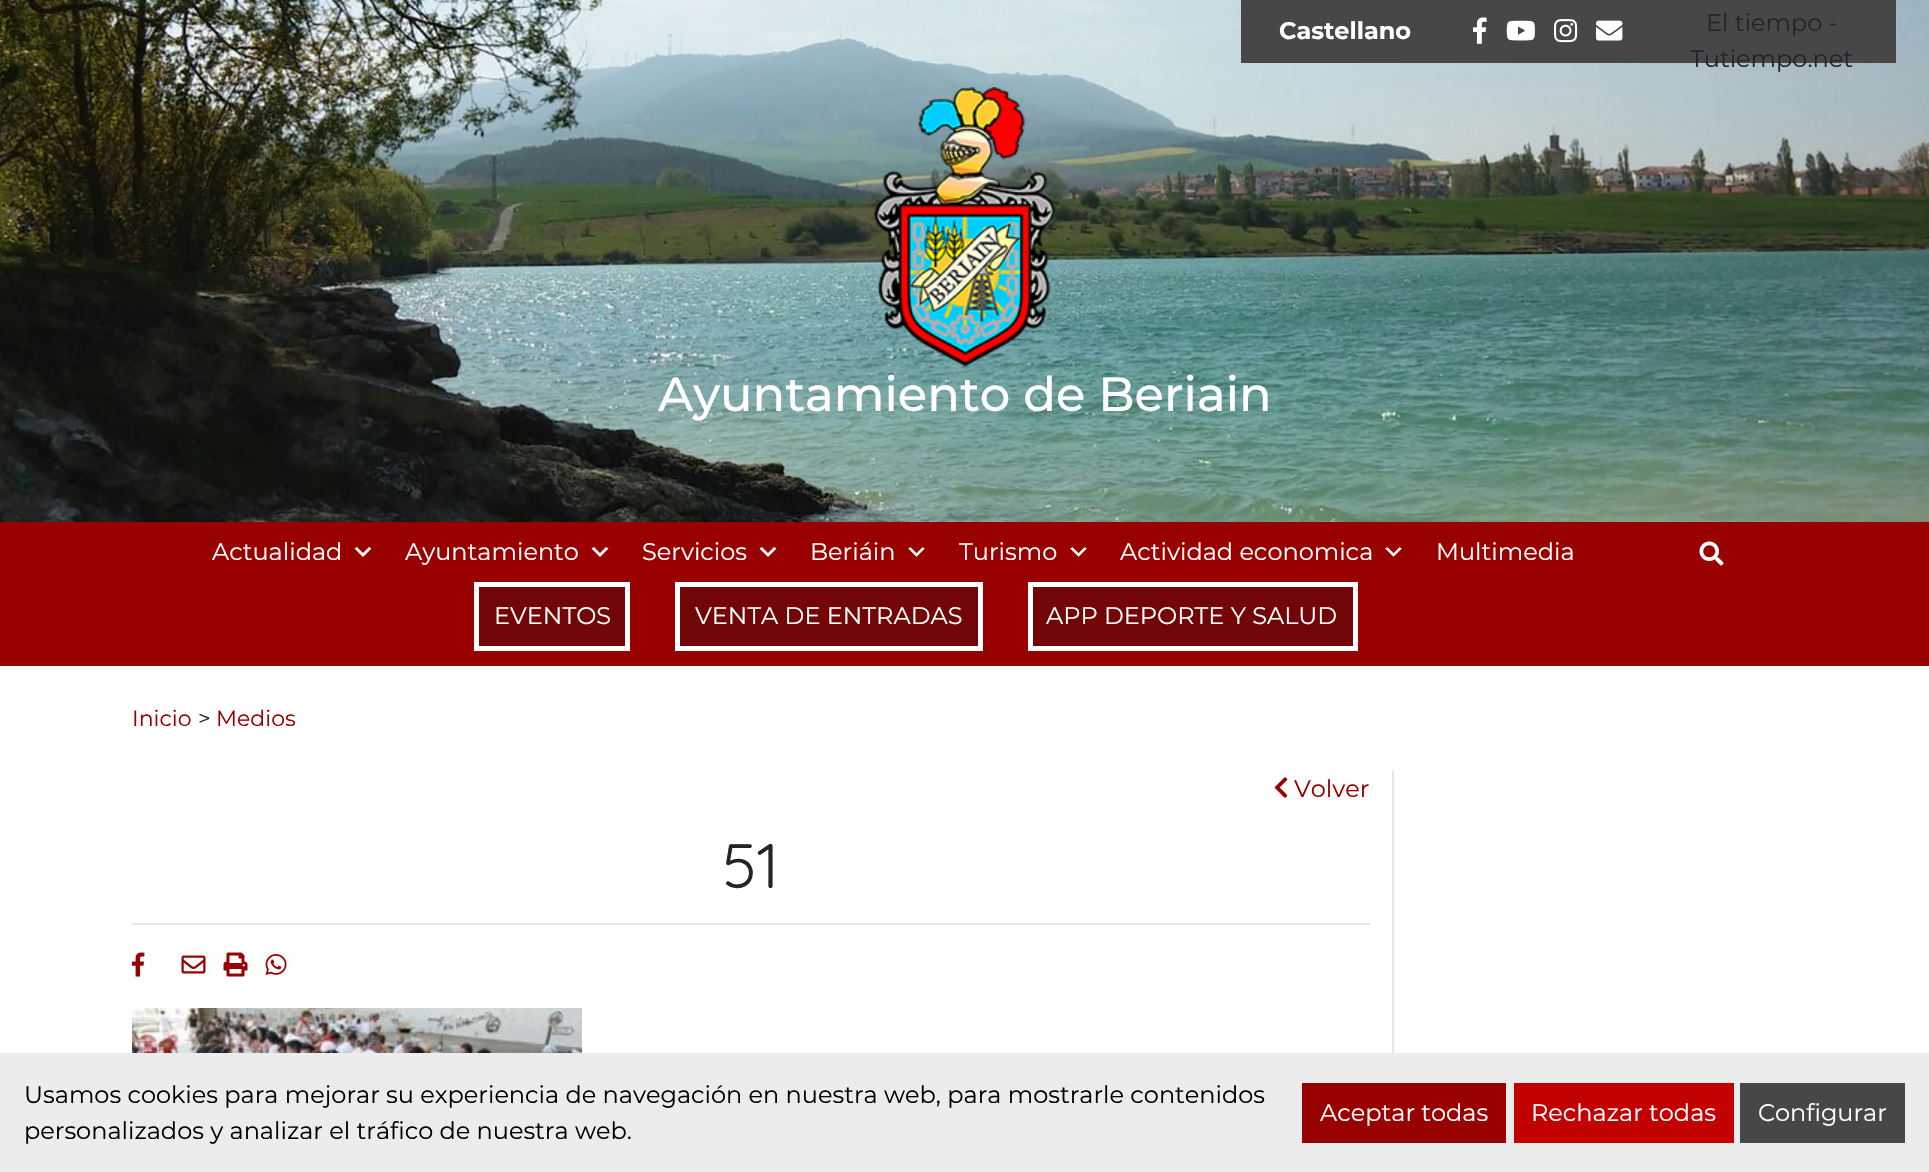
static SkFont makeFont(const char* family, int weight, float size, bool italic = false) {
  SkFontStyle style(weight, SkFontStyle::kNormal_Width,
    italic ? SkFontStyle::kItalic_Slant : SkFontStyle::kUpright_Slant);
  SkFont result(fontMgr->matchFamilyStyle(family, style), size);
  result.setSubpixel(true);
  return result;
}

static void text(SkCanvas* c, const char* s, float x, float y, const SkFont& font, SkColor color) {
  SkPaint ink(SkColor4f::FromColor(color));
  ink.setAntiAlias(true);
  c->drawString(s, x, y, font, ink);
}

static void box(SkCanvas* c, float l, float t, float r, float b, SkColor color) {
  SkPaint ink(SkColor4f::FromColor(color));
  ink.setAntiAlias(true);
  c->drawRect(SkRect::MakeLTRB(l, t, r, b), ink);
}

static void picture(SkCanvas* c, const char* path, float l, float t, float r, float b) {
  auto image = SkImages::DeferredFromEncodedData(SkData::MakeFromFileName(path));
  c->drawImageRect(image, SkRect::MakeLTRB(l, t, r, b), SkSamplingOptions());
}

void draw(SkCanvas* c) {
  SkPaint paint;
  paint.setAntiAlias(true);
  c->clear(0xffffffff);
  picture(c, "img_01.png", 0, 0, 1929, 522);
  box(c, 1241, 0, 1896, 63, 0xff474747);
  SkFont face1 = makeFont("Montserrat", 700, 24);
  text(c, "Castellano", 1279, 39, face1, 0xffffffff);
  picture(c, "img_02.png", 1473, 17, 1487, 44);
  picture(c, "img_03.png", 1506, 20, 1535, 41);
  picture(c, "img_04.png", 1554, 19, 1578, 43);
  picture(c, "img_05.png", 1596, 20, 1623, 41);
  SkFont face2 = makeFont("Montserrat", 400, 24);
  text(c, "El tiempo -", 1706, 31, face2, 0xff212529);
  text(c, "Tutiempo.net", 1690, 67, face2, 0xff212529);
  picture(c, "img_06.png", 874, 87, 1055, 366);
  SkFont face3 = makeFont("Montserrat", 500, 48);
  text(c, "Ayuntamiento de Beriain", 658, 411, face3, 0xffffffff);
  box(c, 0, 522, 1929, 666, 0xff990000);
  text(c, "Actualidad", 212, 560, face2, 0xffffffff);
  paint.setColor(0xffffffff);
  c->drawPath(SkPathBuilder().moveTo(357, 547).lineTo(363, 553).lineTo(369, 547).lineTo(371.5f, 548.5f).lineTo(363, 557).lineTo(354.5f, 548.5f).close().detach(), paint);
  text(c, "Ayuntamiento", 405, 560, face2, 0xffffffff);
  c->drawPath(SkPathBuilder().moveTo(594, 547).lineTo(600, 553).lineTo(606, 547).lineTo(608.5f, 548.5f).lineTo(600, 557).lineTo(591.5f, 548.5f).close().detach(), paint);
  text(c, "Servicios", 642, 560, face2, 0xffffffff);
  c->drawPath(SkPathBuilder().moveTo(762, 547).lineTo(768, 553).lineTo(774, 547).lineTo(776.5f, 548.5f).lineTo(768, 557).lineTo(759.5f, 548.5f).close().detach(), paint);
  text(c, "Beriáin", 810, 560, face2, 0xffffffff);
  picture(c, "img_07.png", 908, 547, 925, 557);
  text(c, "Turismo", 959, 560, face2, 0xffffffff);
  picture(c, "img_07.png", 1070, 547, 1087, 557);
  text(c, "Actividad economica", 1120, 560, face2, 0xffffffff);
  picture(c, "img_07.png", 1385, 547, 1402, 557);
  text(c, "Multimedia", 1436, 560, face2, 0xffffffff);
  paint.setColor(0xff720606);
  c->drawRect(SkRect::MakeLTRB(476.5f, 584.5f, 627.5f, 648.5f), paint);
  paint.setStyle(SkPaint::kStroke_Style);
  paint.setStrokeWidth(5);
  paint.setColor(0xffffffff);
  c->drawRect(SkRect::MakeLTRB(476.5f, 584.5f, 627.5f, 648.5f), paint);
  text(c, "EVENTOS", 494, 624, face2, 0xffffffff);
  paint.setStyle(SkPaint::kFill_Style);
  paint.setColor(0xff720606);
  c->drawRect(SkRect::MakeLTRB(677.5f, 584.5f, 980.5f, 648.5f), paint);
  paint.setStyle(SkPaint::kStroke_Style);
  paint.setColor(0xffffffff);
  c->drawRect(SkRect::MakeLTRB(677.5f, 584.5f, 980.5f, 648.5f), paint);
  text(c, "VENTA DE ENTRADAS", 695, 624, face2, 0xffffffff);
  paint.setStyle(SkPaint::kFill_Style);
  paint.setColor(0xff720606);
  c->drawRect(SkRect::MakeLTRB(1030.5f, 584.5f, 1355.5f, 648.5f), paint);
  paint.setStyle(SkPaint::kStroke_Style);
  paint.setColor(0xffffffff);
  c->drawRect(SkRect::MakeLTRB(1030.5f, 584.5f, 1355.5f, 648.5f), paint);
  text(c, "APP DEPORTE Y SALUD", 1046, 624, face2, 0xffffffff);
  picture(c, "img_08.png", 1699, 541, 1724, 566);
  SkFont face4 = makeFont("Montserrat", 400, 22);
  text(c, "Inicio", 132, 726, face4, 0xff990000);
  text(c, ">", 198, 726, face4, 0xff212529);
  text(c, "Medios", 216, 726, face4, 0xff990000);
  picture(c, "img_09.png", 1274, 777, 1288, 798);
  text(c, "Volver", 1294, 797, face2, 0xff990000);
  box(c, 132, 923, 1370, 925, 0xffe5e5e5);
  SkFont face5 = makeFont("Quicksand", 400, 63);
  text(c, "51", 722, 888, face5, 0xff212529);
  picture(c, "img_10.png", 132, 952, 145, 977);
  picture(c, "img_11.png", 181, 955, 206, 974);
  picture(c, "img_12.png", 223, 952, 248, 977);
  picture(c, "img_13.png", 265, 954, 287, 975);
  picture(c, "img_14.png", 132, 1008, 582, 1053);
  box(c, 1392, 771, 1394, 1053, 0xffe5e5e5);
  box(c, 0, 1053, 1929, 1172, 0xffececec);
  text(c, "Usamos cookies para mejorar su experiencia de navegación en nuestra web, para mostrarle contenidos", 24, 1103, face2, 0xff000000);
  text(c, "personalizados y analizar el tráfico de nuestra web.", 24, 1139, face2, 0xff000000);
  box(c, 1302, 1083, 1506, 1143, 0xff990000);
  text(c, "Aceptar todas", 1320, 1121, face2, 0xffffffff);
  box(c, 1514, 1083, 1734, 1143, 0xffc20000);
  text(c, "Rechazar todas", 1531, 1121, face2, 0xffffffff);
  box(c, 1740, 1083, 1905, 1143, 0xff474747);
  text(c, "Configurar", 1758, 1121, face2, 0xffffffff);
}
